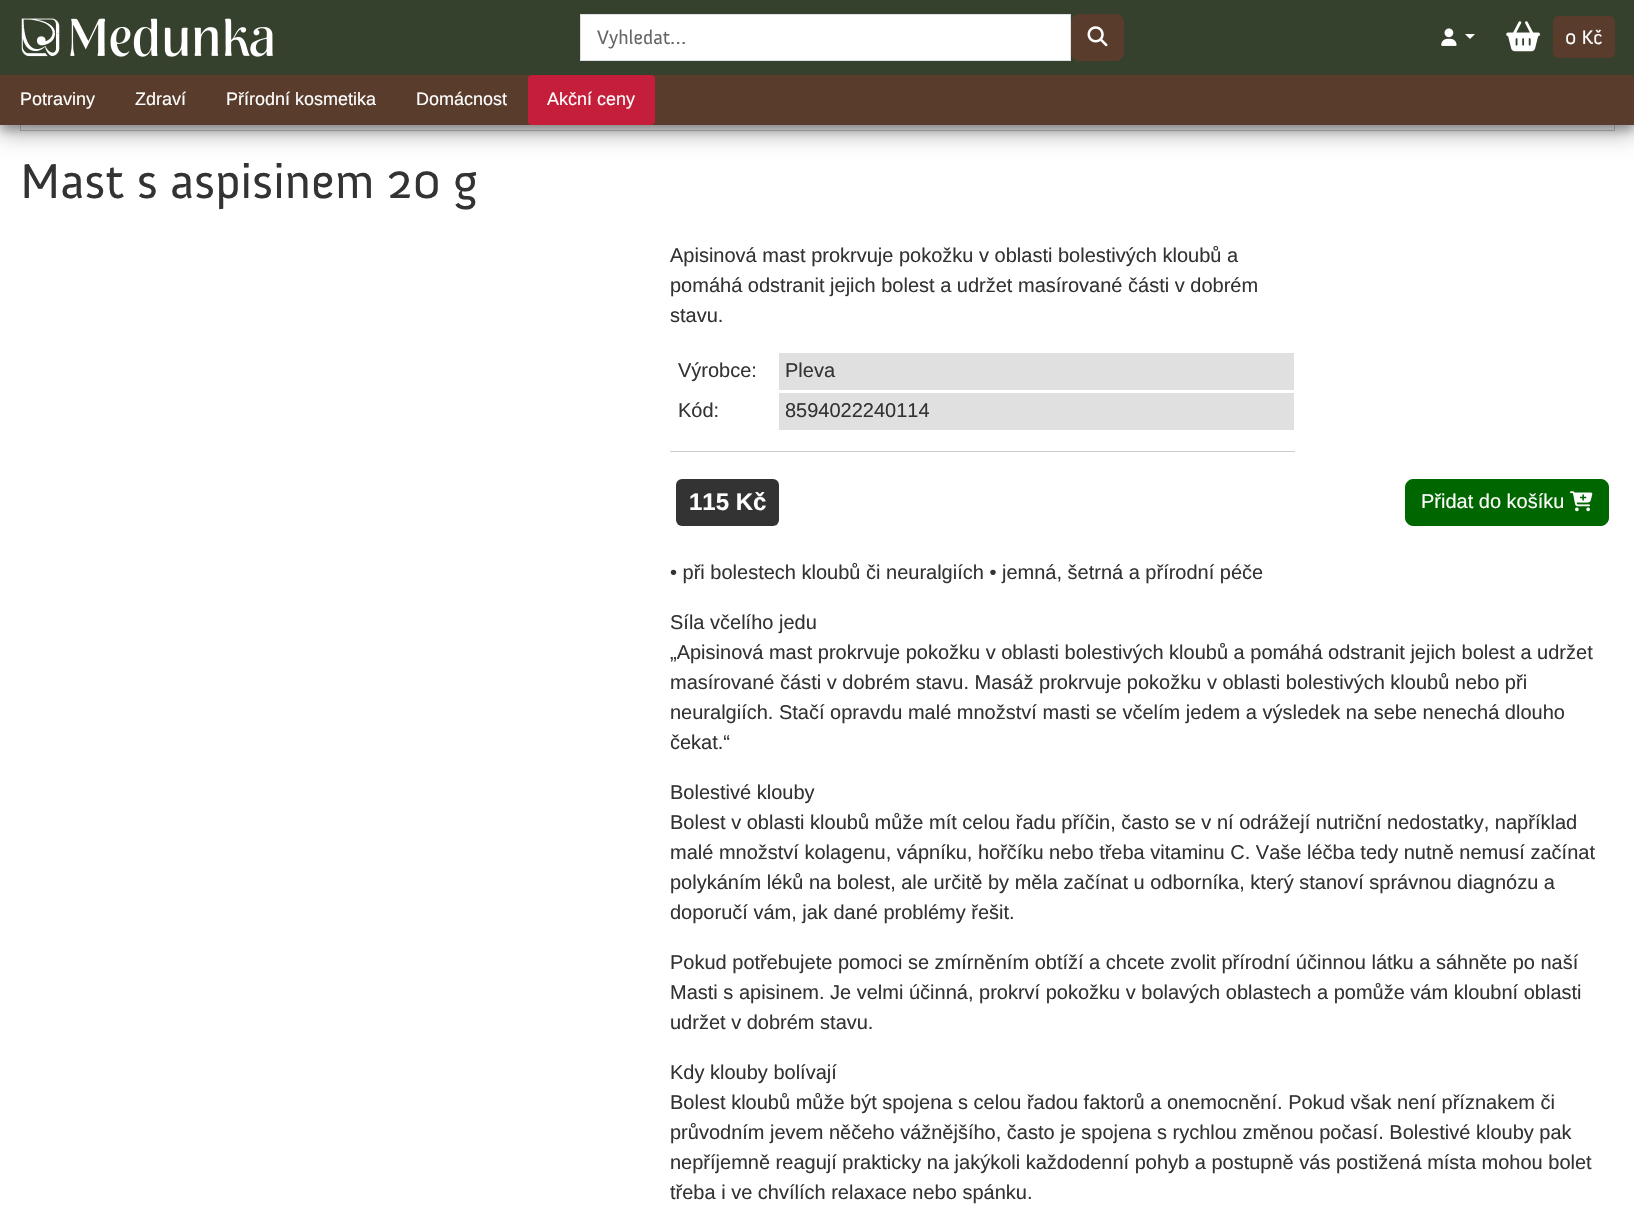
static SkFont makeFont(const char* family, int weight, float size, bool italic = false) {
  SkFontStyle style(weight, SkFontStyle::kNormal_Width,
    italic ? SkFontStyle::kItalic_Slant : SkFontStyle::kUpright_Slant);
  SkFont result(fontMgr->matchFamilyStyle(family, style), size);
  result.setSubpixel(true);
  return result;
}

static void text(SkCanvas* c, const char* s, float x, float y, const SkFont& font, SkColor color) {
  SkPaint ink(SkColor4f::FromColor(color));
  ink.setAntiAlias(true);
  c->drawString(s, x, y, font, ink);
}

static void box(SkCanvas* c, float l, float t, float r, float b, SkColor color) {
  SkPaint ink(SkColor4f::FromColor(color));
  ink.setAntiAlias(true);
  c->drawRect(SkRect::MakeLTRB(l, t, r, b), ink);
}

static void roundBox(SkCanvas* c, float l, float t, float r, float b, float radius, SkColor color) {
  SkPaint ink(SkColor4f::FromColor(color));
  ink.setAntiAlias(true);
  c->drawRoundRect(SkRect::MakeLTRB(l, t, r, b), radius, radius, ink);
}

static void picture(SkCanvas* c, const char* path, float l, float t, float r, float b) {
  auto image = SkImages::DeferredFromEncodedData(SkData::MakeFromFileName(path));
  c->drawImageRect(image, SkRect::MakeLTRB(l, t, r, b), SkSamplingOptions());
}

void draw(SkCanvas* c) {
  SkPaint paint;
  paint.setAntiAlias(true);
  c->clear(0xffffffff);
  paint.setStyle(SkPaint::kStroke_Style);
  paint.setStrokeWidth(1);
  paint.setColor(0xffcccccc);
  c->drawRect(SkRect::MakeLTRB(20.5f, 89.5f, 1614.5f, 130.5f), paint);
  paint.setStyle(SkPaint::kFill_Style);
  paint.setColor(0x4a000000);
  paint.setMaskFilter(SkMaskFilter::MakeBlur(kNormal_SkBlurStyle, 12.5f));
  c->drawRect(SkRect::MakeLTRB(0, 83, 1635, 133), paint);
  paint.setMaskFilter(nullptr);
  paint.setColor(0x4d000000);
  paint.setMaskFilter(SkMaskFilter::MakeBlur(kNormal_SkBlurStyle, 5));
  c->drawRect(SkRect::MakeLTRB(0, 80, 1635, 130), paint);
  paint.setMaskFilter(nullptr);
  box(c, 0, 0, 1634, 75, 0xff35402d);
  picture(c, "img_01.png", 21, 18, 273, 57);
  paint.setColor(0xffffffff);
  c->drawRect(SkRect::MakeLTRB(580.5f, 14.5f, 1070.5f, 60.5f), paint);
  paint.setStyle(SkPaint::kStroke_Style);
  paint.setColor(0xffdee2e6);
  c->drawRect(SkRect::MakeLTRB(580.5f, 14.5f, 1070.5f, 60.5f), paint);
  SkFont face1 = makeFont("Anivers", 400, 20);
  text(c, "Vyhledat…", 597, 44, face1, 0xff666666);
  paint.setStyle(SkPaint::kFill_Style);
  paint.setColor(0xff593c2c);
  c->drawRoundRect(SkRect::MakeLTRB(1071.5f, 14.5f, 1123.5f, 60.5f), 7.5f, 7.5f, paint);
  paint.setStyle(SkPaint::kStroke_Style);
  c->drawRoundRect(SkRect::MakeLTRB(1071.5f, 14.5f, 1123.5f, 60.5f), 7.5f, 7.5f, paint);
  picture(c, "img_02.png", 1087, 26, 1108, 47);
  picture(c, "img_03.png", 1441, 28, 1457, 46);
  paint.setStyle(SkPaint::kFill_Style);
  paint.setColor(0xffffffff);
  c->drawPath(SkPathBuilder().moveTo(1465, 34).lineTo(1475, 34).lineTo(1470, 39).close().detach(), paint);
  picture(c, "img_04.png", 1506, 21, 1540, 52);
  roundBox(c, 1553, 16, 1615, 58, 6, 0xff593c2c);
  text(c, "0 Kč", 1565, 44, face1, 0xffffffff);
  box(c, 0, 75, 1634, 125, 0xff593c2c);
  SkFont face2 = makeFont("Liberation Sans", 400, 18);
  text(c, "Potraviny", 20, 105, face2, 0xffffffff);
  text(c, "Zdraví", 135, 105, face2, 0xffffffff);
  text(c, "Přírodní kosmetika", 226, 105, face2, 0xffffffff);
  text(c, "Domácnost", 416, 105, face2, 0xffffffff);
  roundBox(c, 528, 75, 655, 125, 4, 0xffc41e3a);
  text(c, "Akční ceny", 547, 105, face2, 0xffffffff);
  SkFont face3 = makeFont("Anivers", 400, 50);
  text(c, "Mast s aspisinem 20 g", 20, 198, face3, 0xff333333);
  box(c, 670, 451, 1295, 452, 0xffcccccc);
  SkFont face4 = makeFont("Liberation Sans", 400, 20);
  text(c, "Apisinová mast prokrvuje pokožku v oblasti bolestivých kloubů a", 670, 262, face4, 0xff333333);
  text(c, "pomáhá odstranit jejich bolest a udržet masírované části v dobrém", 670, 292, face4, 0xff333333);
  text(c, "stavu.", 670, 322, face4, 0xff333333);
  text(c, "Výrobce:", 678, 377, face4, 0xff333333);
  box(c, 779, 353, 1294, 390, 0xffe0e0e0);
  text(c, "Pleva", 785, 377, face4, 0xff333333);
  text(c, "Kód:", 678, 417, face4, 0xff333333);
  box(c, 779, 393, 1294, 430, 0xffe0e0e0);
  text(c, "8594022240114", 785, 417, face4, 0xff333333);
  roundBox(c, 676, 479, 779, 526, 6, 0xff333333);
  SkFont face5 = makeFont("Liberation Sans", 700, 24);
  text(c, "115 Kč", 689, 510, face5, 0xffffffff);
  paint.setColor(0xff006600);
  c->drawRoundRect(SkRect::MakeLTRB(1405.5f, 479.5f, 1608.5f, 525.5f), 7.5f, 7.5f, paint);
  paint.setStyle(SkPaint::kStroke_Style);
  c->drawRoundRect(SkRect::MakeLTRB(1405.5f, 479.5f, 1608.5f, 525.5f), 7.5f, 7.5f, paint);
  text(c, "Přidat do košíku", 1421, 508, face4, 0xffffffff);
  picture(c, "img_05.png", 1570, 491, 1593, 512);
  text(c, "• při bolestech kloubů či neuralgiích • jemná, šetrná a přírodní péče", 670, 579, face4, 0xff333333);
  text(c, "Síla včelího jedu", 670, 629, face4, 0xff333333);
  text(c, "„Apisinová mast prokrvuje pokožku v oblasti bolestivých kloubů a pomáhá odstranit jejich bolest a udržet", 670, 659, face4, 0xff333333);
  text(c, "masírované části v dobrém stavu. Masáž prokrvuje pokožku v oblasti bolestivých kloubů nebo při", 670, 689, face4, 0xff333333);
  text(c, "neuralgiích. Stačí opravdu malé množství masti se včelím jedem a výsledek na sebe nenechá dlouho", 670, 719, face4, 0xff333333);
  text(c, "čekat.“", 670, 749, face4, 0xff333333);
  text(c, "Bolestivé klouby", 670, 799, face4, 0xff333333);
  text(c, "Bolest v oblasti kloubů může mít celou řadu příčin, často se v ní odrážejí nutriční nedostatky, například", 670, 829, face4, 0xff333333);
  text(c, "malé množství kolagenu, vápníku, hořčíku nebo třeba vitaminu C. Vaše léčba tedy nutně nemusí začínat", 670, 859, face4, 0xff333333);
  text(c, "polykáním léků na bolest, ale určitě by měla začínat u odborníka, který stanoví správnou diagnózu a", 670, 889, face4, 0xff333333);
  text(c, "doporučí vám, jak dané problémy řešit.", 670, 919, face4, 0xff333333);
  text(c, "Pokud potřebujete pomoci se zmírněním obtíží a chcete zvolit přírodní účinnou látku a sáhněte po naší", 670, 969, face4, 0xff333333);
  text(c, "Masti s apisinem. Je velmi účinná, prokrví pokožku v bolavých oblastech a pomůže vám kloubní oblasti", 670, 999, face4, 0xff333333);
  text(c, "udržet v dobrém stavu.", 670, 1029, face4, 0xff333333);
  text(c, "Kdy klouby bolívají", 670, 1079, face4, 0xff333333);
  text(c, "Bolest kloubů může být spojena s celou řadou faktorů a onemocnění. Pokud však není příznakem či", 670, 1109, face4, 0xff333333);
  text(c, "průvodním jevem něčeho vážnějšího, často je spojena s rychlou změnou počasí. Bolestivé klouby pak", 670, 1139, face4, 0xff333333);
  text(c, "nepříjemně reagují prakticky na jakýkoli každodenní pohyb a postupně vás postižená místa mohou bolet", 670, 1169, face4, 0xff333333);
  text(c, "třeba i ve chvílích relaxace nebo spánku.", 670, 1199, face4, 0xff333333);
}
